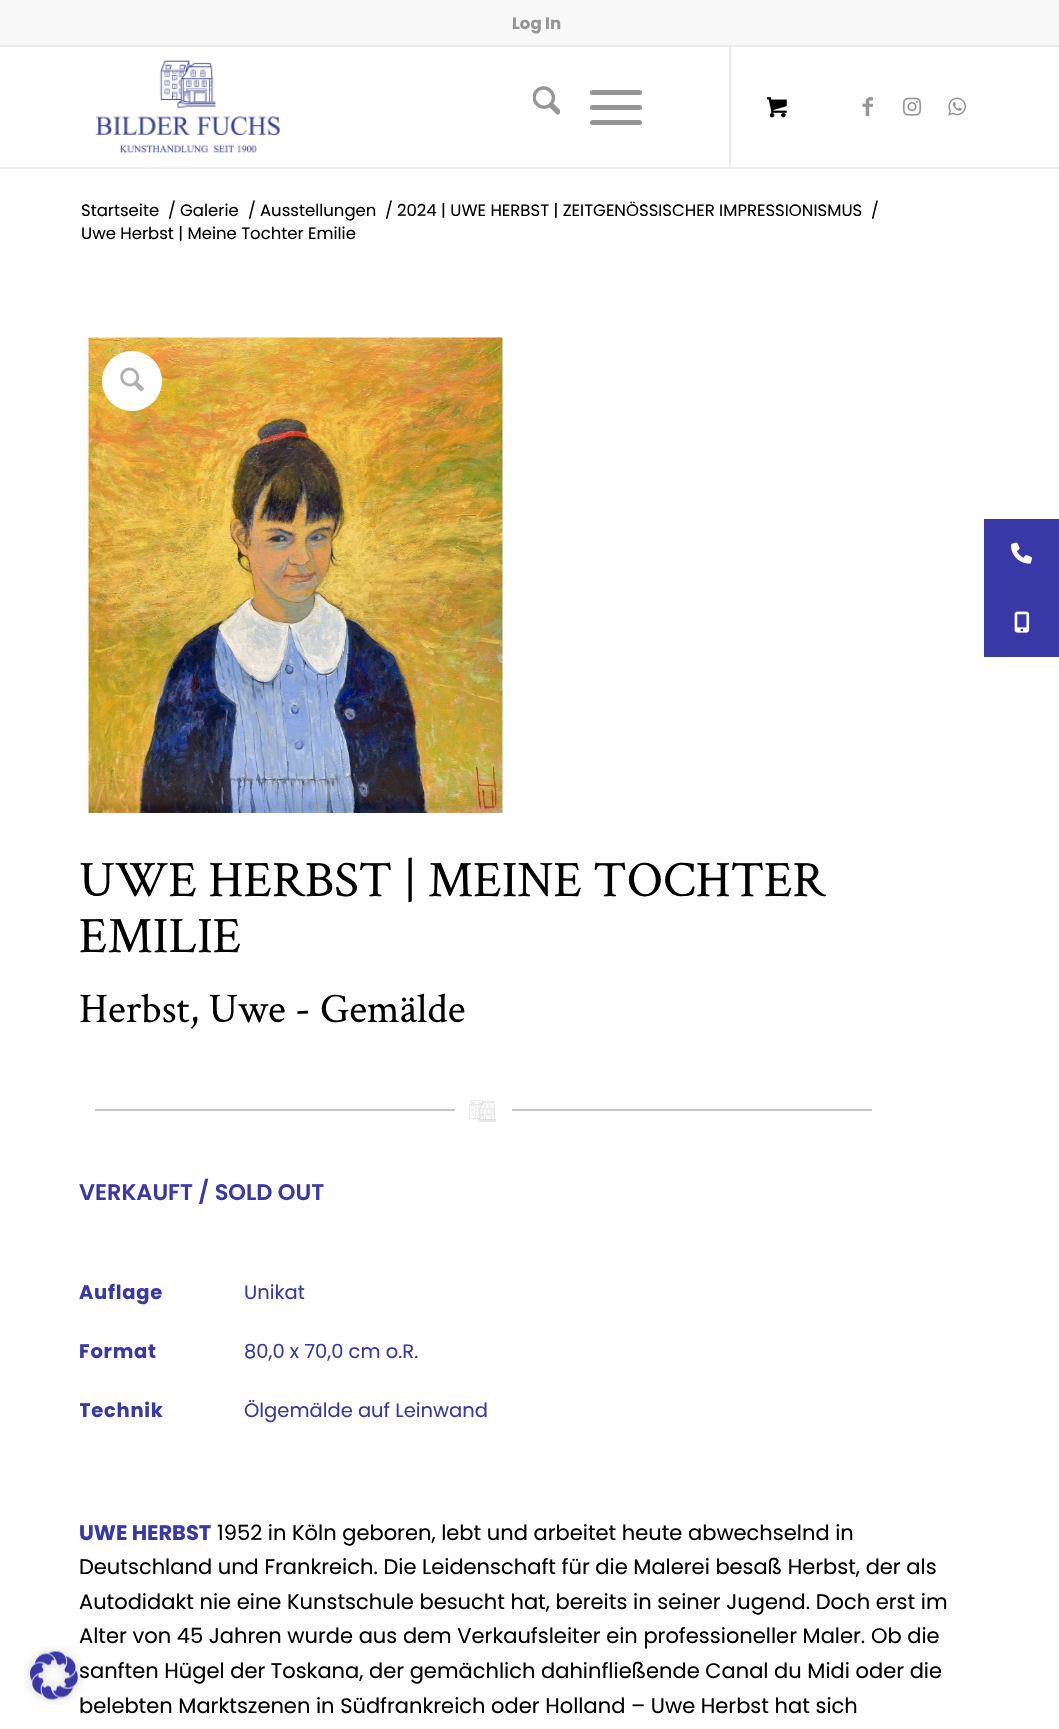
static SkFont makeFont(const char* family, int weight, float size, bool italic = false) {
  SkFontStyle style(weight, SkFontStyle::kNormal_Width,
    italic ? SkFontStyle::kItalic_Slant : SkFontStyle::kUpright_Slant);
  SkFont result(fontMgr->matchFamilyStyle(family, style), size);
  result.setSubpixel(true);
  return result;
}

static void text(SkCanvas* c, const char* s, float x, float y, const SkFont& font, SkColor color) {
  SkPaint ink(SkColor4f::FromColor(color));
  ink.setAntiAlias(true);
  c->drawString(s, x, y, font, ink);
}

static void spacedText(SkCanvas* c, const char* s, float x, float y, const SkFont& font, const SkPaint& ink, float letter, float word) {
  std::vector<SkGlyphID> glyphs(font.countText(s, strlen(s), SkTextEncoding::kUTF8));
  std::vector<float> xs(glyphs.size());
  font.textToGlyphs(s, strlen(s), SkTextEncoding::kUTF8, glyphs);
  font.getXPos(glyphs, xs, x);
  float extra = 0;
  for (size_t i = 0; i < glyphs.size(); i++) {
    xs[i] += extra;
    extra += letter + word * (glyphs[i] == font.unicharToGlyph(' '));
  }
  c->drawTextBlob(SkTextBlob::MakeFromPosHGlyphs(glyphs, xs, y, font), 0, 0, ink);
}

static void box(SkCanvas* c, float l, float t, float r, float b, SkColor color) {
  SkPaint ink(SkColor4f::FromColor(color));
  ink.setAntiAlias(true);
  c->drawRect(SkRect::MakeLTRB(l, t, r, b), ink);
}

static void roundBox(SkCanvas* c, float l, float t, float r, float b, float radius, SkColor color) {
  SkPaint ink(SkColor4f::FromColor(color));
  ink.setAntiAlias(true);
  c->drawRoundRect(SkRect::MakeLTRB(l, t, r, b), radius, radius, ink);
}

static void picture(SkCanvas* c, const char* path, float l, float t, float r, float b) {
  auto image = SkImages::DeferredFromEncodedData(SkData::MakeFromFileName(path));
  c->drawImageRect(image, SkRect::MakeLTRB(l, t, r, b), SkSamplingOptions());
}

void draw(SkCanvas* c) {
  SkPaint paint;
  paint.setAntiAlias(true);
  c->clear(0xffffffff);
  box(c, 0, 0, 1059, 45, 0xfff8f8f8);
  box(c, 0, 45, 1059, 47, 0xffebebeb);
  SkFont face1 = makeFont("Poppins", 700, 16.5f);
  text(c, "Log In", 512, 29, face1, 0xff969696);
  box(c, 0, 167, 1059, 169, 0xffebebeb);
  picture(c, "img_01.png", 95, 60, 280, 153);
  box(c, 729, 47, 731, 167, 0xffebebeb);
  picture(c, "img_02.png", 533, 86, 560, 115);
  roundBox(c, 590, 105, 642, 110, 2.5f, 0xff969696);
  roundBox(c, 590, 90, 642, 95, 2.5f, 0xff969696);
  roundBox(c, 590, 120, 642, 125, 2.5f, 0xff969696);
  picture(c, "img_03.png", 767, 97, 787, 118);
  picture(c, "img_04.png", 862, 97, 873, 117);
  picture(c, "img_05.png", 903, 97, 921, 116);
  picture(c, "img_06.png", 948, 97, 966, 116);
  SkFont face2 = makeFont("Poppins", 400, 16.5f);
  text(c, "Startseite", 81, 216, face2, 0xff000000);
  text(c, "/", 168, 216, face2, 0xff000000);
  text(c, "Galerie", 180, 216, face2, 0xff000000);
  text(c, "/", 248, 216, face2, 0xff000000);
  text(c, "Ausstellungen", 260, 216, face2, 0xff000000);
  text(c, "/", 385, 216, face2, 0xff000000);
  text(c, "2024 | UWE HERBST | ZEITGENÖSSISCHER IMPRESSIONISMUS", 397, 216, face2, 0xff000000);
  text(c, "/", 871, 216, face2, 0xff000000);
  text(c, "Uwe Herbst | Meine Tochter Emilie", 81, 239, face2, 0xff000000);
  picture(c, "img_07.png", 88, 337, 503, 813);
  paint.setColor(0xffffffff);
  c->drawCircle(132, 381, 30, paint);
  picture(c, "img_08.png", 120, 367, 144, 392);
  SkFont face3 = makeFont("Crimson Text", 400, 51);
  text(c, "UWE HERBST | MEINE TOCHTER", 79, 896, face3, 0xff000000);
  text(c, "EMILIE", 79, 952, face3, 0xff000000);
  SkFont face4 = makeFont("Crimson Text", 400, 42);
  text(c, "Herbst, Uwe - Gemälde", 79, 1022, face4, 0xff000000);
  box(c, 95, 1109, 455, 1111, 0xffc6c6c6);
  picture(c, "img_09.png", 469, 1100, 496, 1123);
  box(c, 512, 1109, 872, 1111, 0xffc6c6c6);
  SkFont face5 = makeFont("Poppins", 600, 22.5f);
  text(c, "VERKAUFT / SOLD OUT", 79, 1200, face5, 0xff3838a7);
  SkFont face6 = makeFont("Poppins", 700, 19.5f);
  paint.setColor(0xff3838a7);
  spacedText(c, "Auflage", 79, 1299, face6, paint, 0.75f, 0);
  SkFont face7 = makeFont("Poppins", 400, 19.5f);
  text(c, "Unikat", 244, 1299, face7, 0xff3838a7);
  spacedText(c, "Format", 79, 1358, face6, paint, 0.75f, 0);
  text(c, "80,0 x 70,0 cm o.R.", 244, 1358, face7, 0xff3838a7);
  c->save();
  c->clipRect(SkRect::MakeLTRB(80, 852, 980, 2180));
  spacedText(c, "Technik", 79, 1417, face6, paint, 0.75f, 0);
  c->restore();
  text(c, "Ölgemälde auf Leinwand", 244, 1417, face7, 0xff3838a7);
  SkFont face8 = makeFont("Poppins", 700, 21);
  text(c, "UWE HERBST", 79, 1540, face8, 0xff3838a7);
  SkFont face9 = makeFont("Poppins", 400, 21);
  text(c, "1952 in Köln geboren, lebt und arbeitet heute abwechselnd in", 217, 1540, face9, 0xff000000);
  text(c, "Deutschland und Frankreich. Die Leidenschaft für die Malerei besaß Herbst, der als", 79, 1574, face9, 0xff000000);
  text(c, "Autodidakt nie eine Kunstschule besucht hat, bereits in seiner Jugend. Doch erst im", 79, 1609, face9, 0xff000000);
  text(c, "Alter von 45 Jahren wurde aus dem Verkaufsleiter ein professioneller Maler. Ob die", 79, 1643, face9, 0xff000000);
  text(c, "sanften Hügel der Toskana, der gemächlich dahinfließende Canal du Midi oder die", 79, 1678, face9, 0xff000000);
  text(c, "belebten Marktszenen in Südfrankreich oder Holland – Uwe Herbst hat sich", 79, 1713, face9, 0xff000000);
  box(c, 984, 519, 1059, 657, 0xff3838a7);
  picture(c, "img_10.png", 1011, 542, 1032, 564);
  picture(c, "img_11.png", 1014, 611, 1030, 633);
  picture(c, "img_12.png", 24, 1646, 84, 1705);
}
